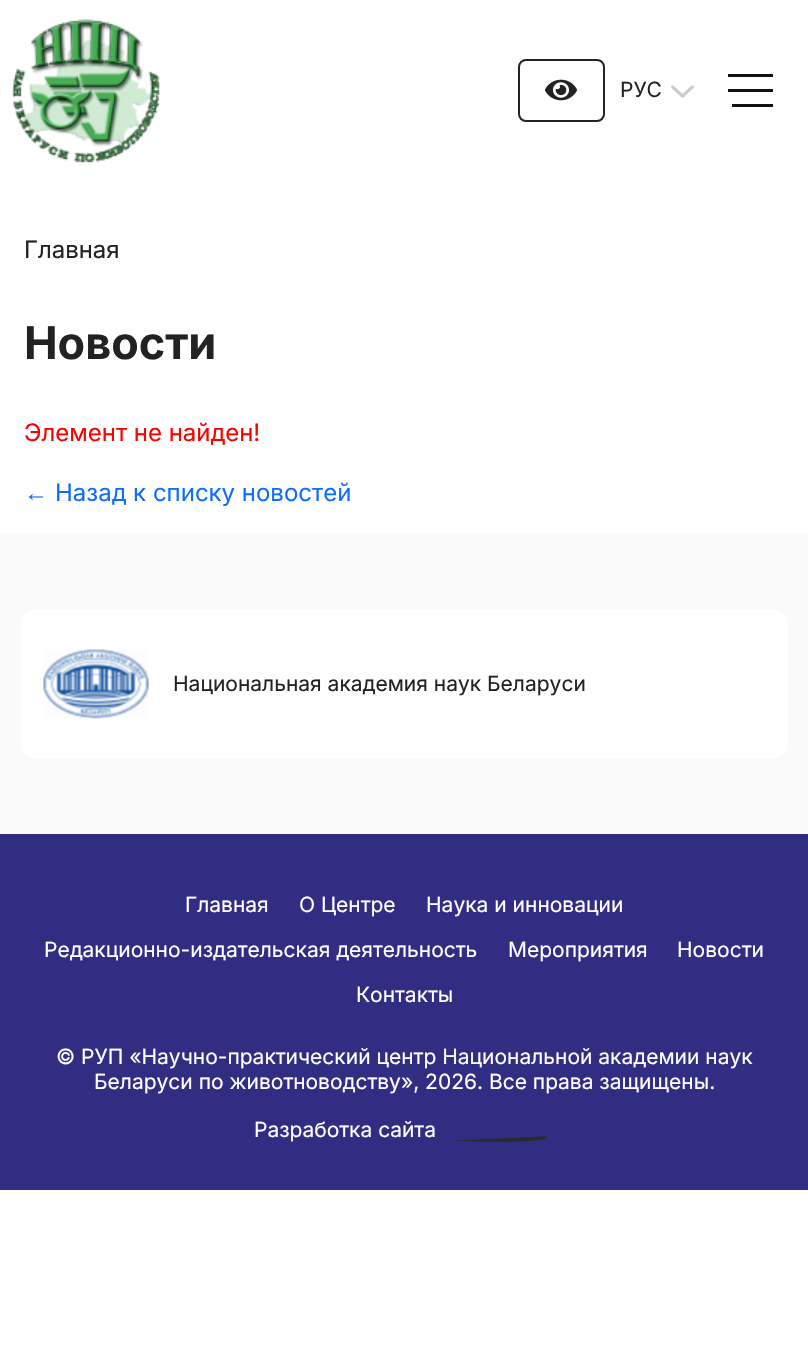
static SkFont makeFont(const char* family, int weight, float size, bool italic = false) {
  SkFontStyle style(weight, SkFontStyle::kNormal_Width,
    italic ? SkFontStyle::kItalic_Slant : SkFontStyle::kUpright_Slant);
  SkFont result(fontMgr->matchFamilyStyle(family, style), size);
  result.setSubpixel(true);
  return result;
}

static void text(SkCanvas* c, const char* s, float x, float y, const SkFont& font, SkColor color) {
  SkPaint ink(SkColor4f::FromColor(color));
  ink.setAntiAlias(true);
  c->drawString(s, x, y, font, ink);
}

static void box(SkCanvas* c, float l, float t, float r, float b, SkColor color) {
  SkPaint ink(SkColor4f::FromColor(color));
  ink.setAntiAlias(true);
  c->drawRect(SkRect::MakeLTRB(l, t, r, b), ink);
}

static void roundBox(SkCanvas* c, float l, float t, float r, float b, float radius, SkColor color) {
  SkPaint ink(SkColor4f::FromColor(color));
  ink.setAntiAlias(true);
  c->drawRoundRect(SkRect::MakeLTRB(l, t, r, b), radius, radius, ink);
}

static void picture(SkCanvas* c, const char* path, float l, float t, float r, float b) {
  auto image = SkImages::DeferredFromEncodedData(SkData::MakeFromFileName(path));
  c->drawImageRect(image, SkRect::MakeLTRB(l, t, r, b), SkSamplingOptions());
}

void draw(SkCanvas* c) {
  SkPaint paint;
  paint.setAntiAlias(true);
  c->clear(0xffffffff);
  picture(c, "img_01.png", 12, 19, 160, 163);
  paint.setStyle(SkPaint::kStroke_Style);
  paint.setStrokeWidth(2);
  paint.setColor(0xff222222);
  c->drawRoundRect(SkRect::MakeLTRB(519, 60, 604, 121), 7, 7, paint);
  picture(c, "img_02.png", 545, 79, 577, 101);
  SkFont face1 = makeFont("Inter", 400, 21);
  text(c, "РУС", 620, 97, face1, 0xff222222);
  picture(c, "img_03.png", 671, 85, 694, 98);
  box(c, 728, 89, 773, 92, 0xff111111);
  box(c, 728, 74, 773, 77, 0xff111111);
  box(c, 732, 104, 773, 107, 0xff111111);
  SkFont face2 = makeFont("Inter", 400, 24);
  text(c, "Главная", 24, 258, face2, 0xff222222);
  SkFont face3 = makeFont("Inter", 700, 45);
  text(c, "Новости", 24, 359, face3, 0xff222222);
  text(c, "Элемент не найден!", 24, 441, face2, 0xffff0000);
  SkFont face4 = makeFont("Liberation Serif", 400, 24);
  text(c, "←", 24, 501, face4, 0xff0d6efd);
  text(c, "Назад к списку новостей", 55, 501, face2, 0xff0d6efd);
  box(c, 0, 534, 808, 834, 0xfffafafa);
  roundBox(c, 21, 609, 788, 759, 15, 0xffffffff);
  picture(c, "img_04.png", 43, 649, 149, 719);
  text(c, "Национальная академия наук Беларуси", 173, 691, face1, 0xff222222);
  box(c, 0, 834, 808, 1190, 0xff312d83);
  text(c, "Главная", 185, 912, face1, 0xffffffff);
  text(c, "О Центре", 299, 912, face1, 0xffffffff);
  text(c, "Наука и инновации", 426, 912, face1, 0xffffffff);
  text(c, "Редакционно-издательская деятельность", 44, 957, face1, 0xffffffff);
  text(c, "Мероприятия", 508, 957, face1, 0xffffffff);
  text(c, "Новости", 677, 957, face1, 0xffffffff);
  text(c, "Контакты", 356, 1002, face1, 0xffffffff);
  text(c, "© РУП «Научно-практический центр Национальной академии наук", 56, 1064, face1, 0xffffffff);
  text(c, "Беларуси по животноводству», 2026. Все права защищены.", 94, 1089, face1, 0xffffffff);
  text(c, "Разработка сайта", 254, 1137, face1, 0xffffffff);
  picture(c, "img_05.png", 454, 1136, 547, 1142);
}
